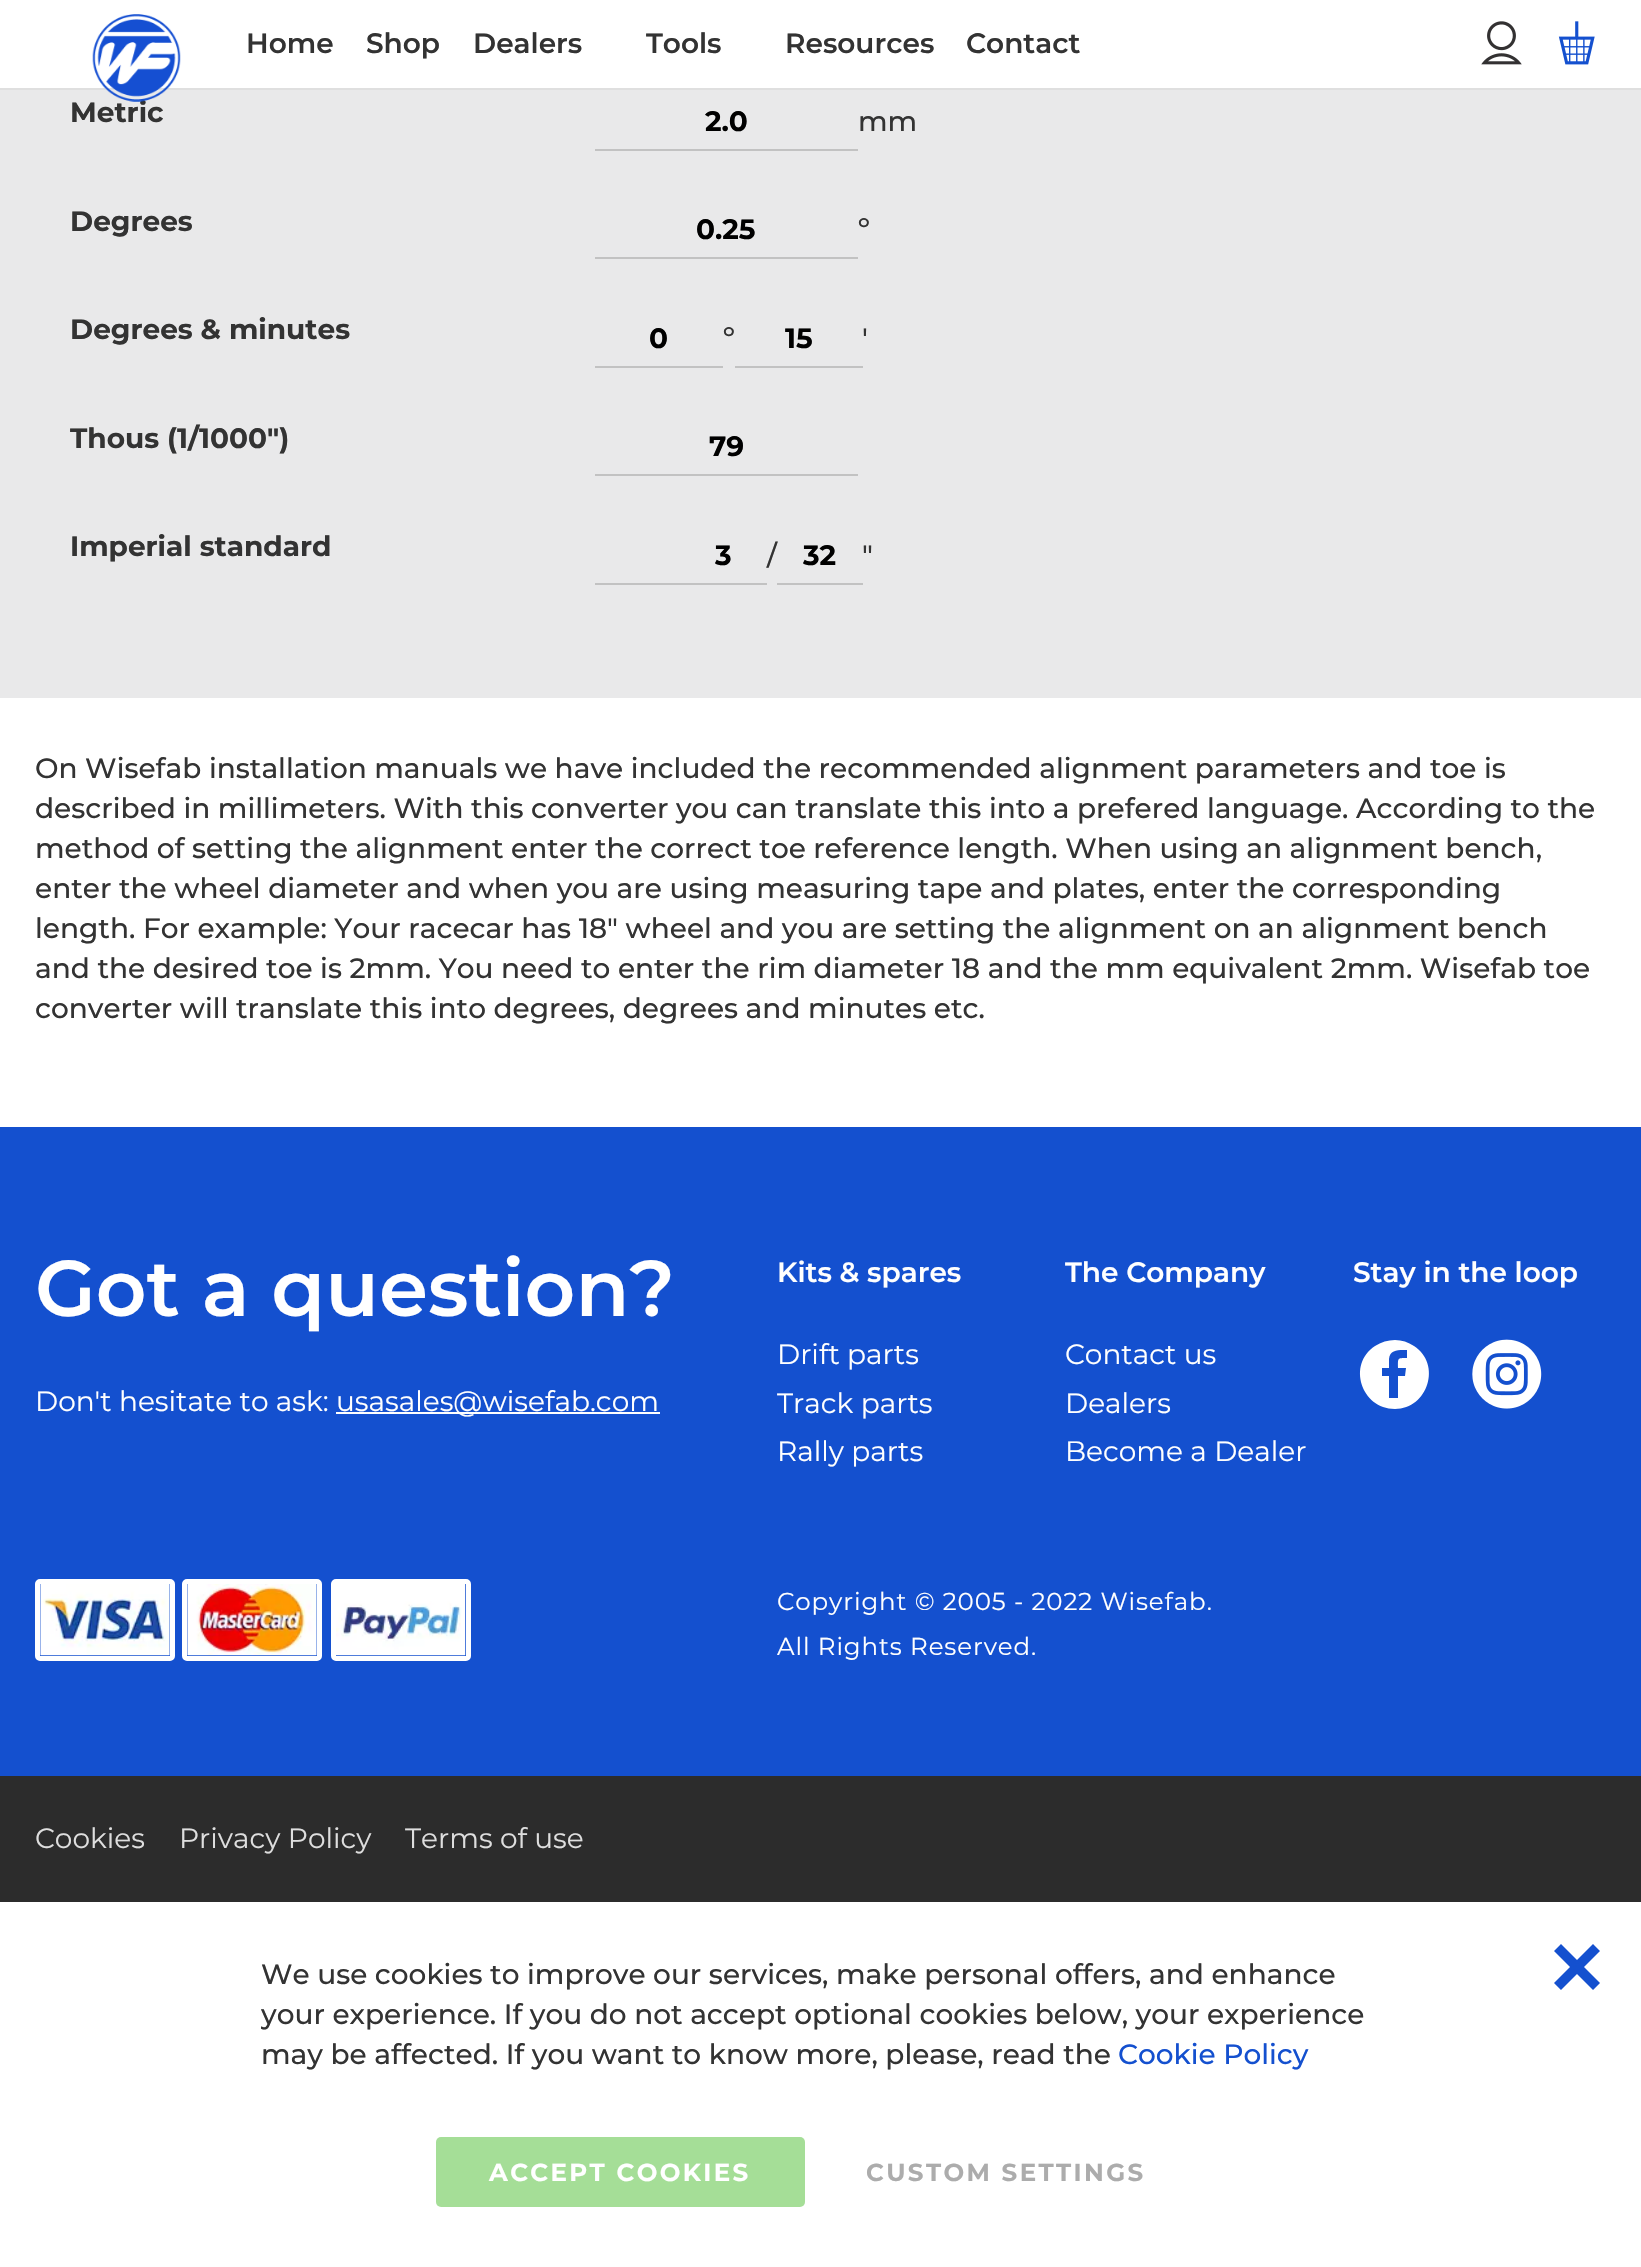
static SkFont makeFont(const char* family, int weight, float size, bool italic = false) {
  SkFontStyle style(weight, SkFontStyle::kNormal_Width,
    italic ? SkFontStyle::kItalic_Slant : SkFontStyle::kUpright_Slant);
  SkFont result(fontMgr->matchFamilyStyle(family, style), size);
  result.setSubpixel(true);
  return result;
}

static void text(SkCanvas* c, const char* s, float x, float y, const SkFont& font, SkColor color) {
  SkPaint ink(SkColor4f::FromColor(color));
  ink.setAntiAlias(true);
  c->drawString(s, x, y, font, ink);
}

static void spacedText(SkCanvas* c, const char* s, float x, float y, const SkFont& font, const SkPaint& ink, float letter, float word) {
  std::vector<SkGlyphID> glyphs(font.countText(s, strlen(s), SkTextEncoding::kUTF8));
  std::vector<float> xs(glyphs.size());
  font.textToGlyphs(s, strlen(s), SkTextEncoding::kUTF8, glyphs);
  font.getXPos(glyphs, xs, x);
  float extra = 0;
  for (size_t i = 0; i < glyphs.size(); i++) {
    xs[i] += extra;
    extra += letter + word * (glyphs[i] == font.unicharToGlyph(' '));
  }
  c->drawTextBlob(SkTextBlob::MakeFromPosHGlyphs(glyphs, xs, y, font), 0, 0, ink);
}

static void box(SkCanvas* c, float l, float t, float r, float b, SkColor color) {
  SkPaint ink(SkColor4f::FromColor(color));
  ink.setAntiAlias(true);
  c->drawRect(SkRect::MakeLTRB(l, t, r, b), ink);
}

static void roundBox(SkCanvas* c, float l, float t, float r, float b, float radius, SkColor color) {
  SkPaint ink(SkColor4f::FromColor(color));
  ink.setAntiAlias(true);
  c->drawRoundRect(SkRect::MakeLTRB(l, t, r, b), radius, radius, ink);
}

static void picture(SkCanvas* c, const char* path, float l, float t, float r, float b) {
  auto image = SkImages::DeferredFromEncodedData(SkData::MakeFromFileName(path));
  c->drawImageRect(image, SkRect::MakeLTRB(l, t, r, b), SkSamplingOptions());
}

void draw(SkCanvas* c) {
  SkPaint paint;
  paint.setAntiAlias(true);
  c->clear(0xffffffff);
  box(c, 0, 88, 1641, 90, 0xffdfdfdf);
  box(c, 0, 90, 1641, 698, 0xffe9e9ea);
  SkFont face1 = makeFont("Montserrat", 700, 28);
  text(c, "Metric", 70, 122, face1, 0xff333333);
  picture(c, "img_01.png", 92, 14, 181, 102);
  SkFont face2 = makeFont("Montserrat", 600, 28);
  text(c, "Home", 246, 53, face2, 0xff333333);
  text(c, "Shop", 366, 53, face2, 0xff333333);
  text(c, "Dealers", 473, 53, face2, 0xff333333);
  text(c, "Tools", 646, 53, face2, 0xff333333);
  text(c, "Resources", 785, 53, face2, 0xff333333);
  text(c, "Contact", 966, 53, face2, 0xff333333);
  picture(c, "img_02.png", 1481, 21, 1522, 65);
  picture(c, "img_03.png", 1558, 21, 1595, 65);
  box(c, 595, 149, 858, 151, 0xffc2c2c2);
  text(c, "2.0", 705, 131, face1, 0xff000000);
  SkFont face3 = makeFont("Montserrat", 500, 28);
  text(c, "mm", 858, 131, face3, 0xff333333);
  text(c, "Degrees", 70, 231, face1, 0xff333333);
  box(c, 595, 257, 858, 259, 0xffc2c2c2);
  text(c, "0.25", 696, 239, face1, 0xff000000);
  text(c, "º", 858, 239, face3, 0xff333333);
  text(c, "Degrees & minutes", 70, 339, face1, 0xff333333);
  box(c, 595, 366, 723, 368, 0xffc2c2c2);
  text(c, "0", 649, 348, face1, 0xff000000);
  text(c, "º", 723, 348, face3, 0xff333333);
  box(c, 735, 366, 863, 368, 0xffc2c2c2);
  text(c, "15", 785, 348, face1, 0xff000000);
  text(c, "'", 862, 348, face3, 0xff333333);
  text(c, "Thous (1/1000\")", 70, 448, face1, 0xff333333);
  box(c, 595, 474, 858, 476, 0xffc2c2c2);
  text(c, "79", 709, 456, face1, 0xff000000);
  text(c, "Imperial standard", 70, 556, face1, 0xff333333);
  text(c, "3", 715, 565, face1, 0xff000000);
  text(c, "/", 767, 565, face3, 0xff333333);
  box(c, 777, 583, 863, 585, 0xffc2c2c2);
  text(c, "32", 803, 565, face1, 0xff000000);
  text(c, "\"", 862, 565, face3, 0xff333333);
  box(c, 595, 583, 767, 585, 0xffc2c2c2);
  text(c, "On Wisefab installation manuals we have included the recommended alignment parameters and toe is", 35, 778, face3, 0xff333333);
  text(c, "described in millimeters. With this converter you can translate this into a prefered language. According to the", 35, 818, face3, 0xff333333);
  text(c, "method of setting the alignment enter the correct toe reference length. When using an alignment bench,", 35, 858, face3, 0xff333333);
  text(c, "enter the wheel diameter and when you are using measuring tape and plates, enter the corresponding", 35, 898, face3, 0xff333333);
  text(c, "length. For example: Your racecar has 18\" wheel and you are setting the alignment on an alignment bench", 35, 938, face3, 0xff333333);
  text(c, "and the desired toe is 2mm. You need to enter the rim diameter 18 and the mm equivalent 2mm. Wisefab toe", 35, 978, face3, 0xff333333);
  text(c, "converter will translate this into degrees, degrees and minutes etc.", 35, 1018, face3, 0xff333333);
  box(c, 0, 1127, 1641, 1776, 0xff1450cf);
  SkFont face4 = makeFont("Montserrat", 600, 78.75f);
  text(c, "Got a question?", 35, 1316, face4, 0xffffffff);
  SkFont face5 = makeFont("Montserrat", 400, 28);
  text(c, "Don't hesitate to ask:", 35, 1411, face5, 0xffffffff);
  box(c, 336, 1412, 660, 1414, 0xffffffff);
  text(c, "usasales@wisefab.com", 336, 1411, face5, 0xffffffff);
  text(c, "Kits & spares", 777, 1282, face2, 0xffffffff);
  text(c, "Drift parts", 777, 1364, face5, 0xffffffff);
  text(c, "Track parts", 777, 1413, face5, 0xffffffff);
  text(c, "Rally parts", 777, 1461, face5, 0xffffffff);
  text(c, "The Company", 1065, 1282, face2, 0xffffffff);
  text(c, "Contact us", 1065, 1364, face5, 0xffffffff);
  text(c, "Dealers", 1065, 1413, face5, 0xffffffff);
  text(c, "Become a Dealer", 1065, 1461, face5, 0xffffffff);
  text(c, "Stay in the loop", 1353, 1282, face2, 0xffffffff);
  paint.setColor(0xffffffff);
  c->drawPath(SkPathBuilder().moveTo(1395, 1340).cubicTo(1388, 1340, 1381, 1342, 1375, 1346).cubicTo(1347, 1364, 1361, 1409, 1395, 1409).cubicTo(1428, 1409, 1442, 1364, 1414, 1346).cubicTo(1408, 1342, 1402, 1340, 1395, 1340).close().moveTo(1407, 1358).cubicTo(1397, 1358, 1398, 1358, 1398, 1368).lineTo(1406, 1368).lineTo(1405, 1376).lineTo(1398, 1376).lineTo(1398, 1398).lineTo(1389, 1398).lineTo(1389, 1376).lineTo(1382, 1376).lineTo(1382, 1368).lineTo(1389, 1368).lineTo(1389, 1359).cubicTo(1390, 1349, 1399, 1350, 1407, 1350).close().detach(), paint);
  picture(c, "img_04.png", 1472, 1339, 1542, 1409);
  paint.setStyle(SkPaint::kStroke_Style);
  paint.setStrokeWidth(5);
  c->drawRoundRect(SkRect::MakeLTRB(37.5f, 1581.5f, 172.5f, 1658.5f), 2.5f, 2.5f, paint);
  c->drawRoundRect(SkRect::MakeLTRB(184.5f, 1581.5f, 319.5f, 1658.5f), 2.5f, 2.5f, paint);
  c->drawRoundRect(SkRect::MakeLTRB(333.5f, 1581.5f, 468.5f, 1658.5f), 2.5f, 2.5f, paint);
  picture(c, "img_05.png", 40, 1584, 170, 1656);
  picture(c, "img_06.png", 187, 1584, 317, 1656);
  picture(c, "img_07.png", 336, 1584, 466, 1656);
  SkFont face6 = makeFont("Montserrat", 400, 24.5f);
  paint.setStyle(SkPaint::kFill_Style);
  spacedText(c, "Copyright © 2005 - 2022 Wisefab.", 777, 1610, face6, paint, 0.9f, 0);
  spacedText(c, "All Rights Reserved.", 777, 1655, face6, paint, 0.9f, 0);
  box(c, 0, 1776, 1641, 1902, 0xff2c2c2c);
  text(c, "Cookies", 35, 1848, face5, 0xffdedede);
  text(c, "Privacy Policy", 179, 1848, face5, 0xffdedede);
  text(c, "Terms of use", 405, 1848, face5, 0xffdedede);
  text(c, "We use cookies to improve our services, make personal offers, and enhance", 261, 1984, face3, 0xff333333);
  c->save();
  c->clipRect(SkRect::MakeLTRB(261, 1955, 1381, 2076));
  text(c, "your experience. If you do not accept optional cookies below, your experience", 261, 2024, face3, 0xff333333);
  c->restore();
  text(c, "may be affected. If you want to know more, please, read the", 261, 2064, face3, 0xff333333);
  text(c, "Cookie Policy", 1118, 2064, face3, 0xff1450cf);
  roundBox(c, 436, 2137, 805, 2207, 5, 0xffa5de97);
  SkFont face7 = makeFont("Montserrat", 700, 24.5f);
  spacedText(c, "ACCEPT COOKIES", 489, 2181, face7, paint, 2.4f, 0);
  paint.setColor(0xffacacac);
  spacedText(c, "CUSTOM SETTINGS", 866, 2181, face7, paint, 2.4f, 0);
  paint.setColor(0xff1450cf);
  c->drawPath(SkPathBuilder().moveTo(1584, 1967).lineTo(1600, 1983).lineTo(1593, 1990).lineTo(1577, 1974).lineTo(1561, 1990).lineTo(1554, 1983).lineTo(1570, 1967).lineTo(1554, 1951).lineTo(1561, 1944).lineTo(1577, 1960).lineTo(1593, 1944).lineTo(1600, 1951).close().detach(), paint);
}
